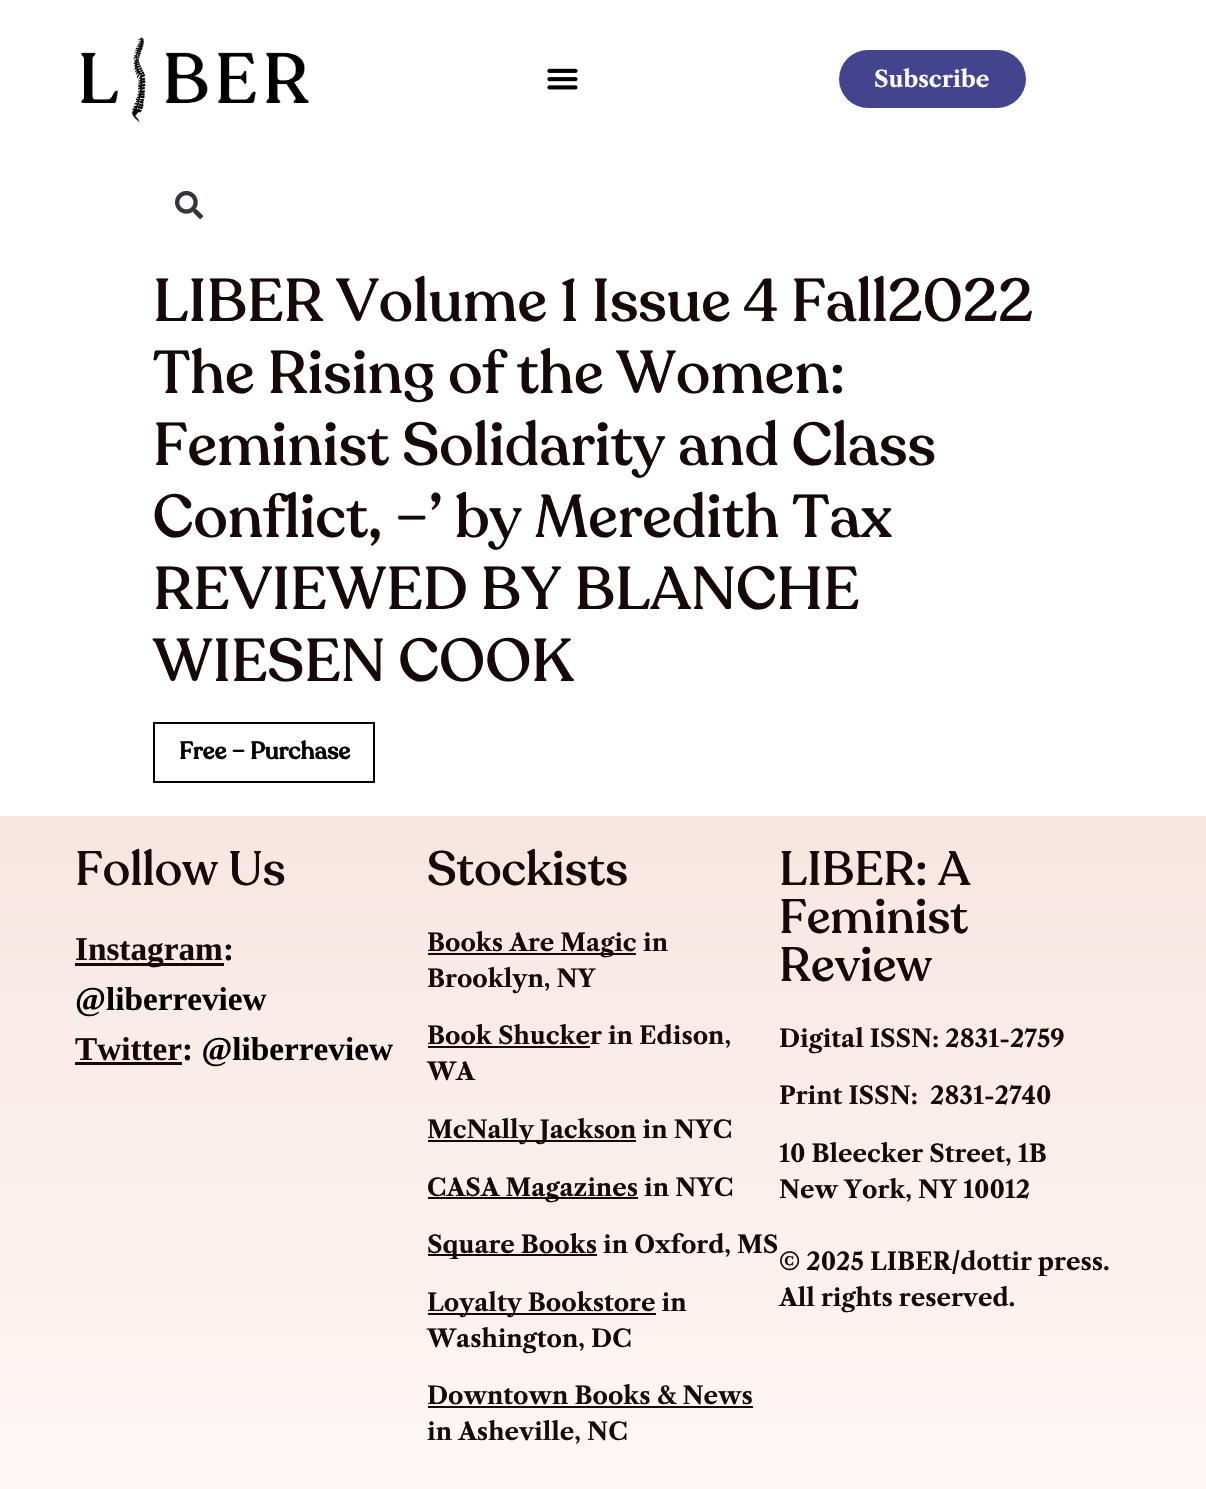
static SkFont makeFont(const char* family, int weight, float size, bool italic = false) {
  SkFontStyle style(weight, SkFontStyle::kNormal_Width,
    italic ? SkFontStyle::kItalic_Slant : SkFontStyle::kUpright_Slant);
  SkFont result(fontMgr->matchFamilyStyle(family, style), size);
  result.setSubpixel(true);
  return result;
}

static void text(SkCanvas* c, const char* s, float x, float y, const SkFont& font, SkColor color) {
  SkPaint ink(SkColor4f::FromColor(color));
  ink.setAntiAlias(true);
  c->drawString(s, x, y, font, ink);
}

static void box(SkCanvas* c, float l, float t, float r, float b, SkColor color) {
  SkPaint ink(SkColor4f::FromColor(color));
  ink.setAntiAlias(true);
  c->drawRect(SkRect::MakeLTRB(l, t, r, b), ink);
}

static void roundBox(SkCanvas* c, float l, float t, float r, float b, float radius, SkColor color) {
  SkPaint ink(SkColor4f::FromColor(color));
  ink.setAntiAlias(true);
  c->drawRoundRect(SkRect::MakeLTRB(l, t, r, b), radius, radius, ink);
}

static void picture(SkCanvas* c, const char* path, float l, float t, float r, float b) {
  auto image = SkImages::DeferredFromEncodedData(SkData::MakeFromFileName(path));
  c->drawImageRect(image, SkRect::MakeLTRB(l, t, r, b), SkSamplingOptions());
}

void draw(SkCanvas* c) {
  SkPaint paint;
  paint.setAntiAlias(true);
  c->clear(0xffffffff);
  picture(c, "img_01.png", 81, 37, 309, 122);
  picture(c, "img_02.png", 547, 68, 578, 90);
  roundBox(c, 839, 50, 1026, 108, 29, 0xff43438e);
  SkFont face1 = makeFont("Libre Caslon Text", 700, 22.5f);
  text(c, "Subscribe", 874, 87, face1, 0xffffffff);
  picture(c, "img_03.png", 175, 190, 203, 219);
  SkFont face2 = makeFont("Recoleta", 500, 60);
  text(c, "LIBER Volume 1 Issue 4 Fall2022", 153, 321, face2, 0xff150909);
  text(c, "The Rising of the Women:", 153, 393, face2, 0xff150909);
  text(c, "Feminist Solidarity and Class", 153, 465, face2, 0xff150909);
  text(c, "Conflict, –’ by Meredith Tax", 153, 537, face2, 0xff150909);
  text(c, "REVIEWED BY BLANCHE", 153, 609, face2, 0xff150909);
  text(c, "WIESEN COOK", 153, 681, face2, 0xff150909);
  paint.setStyle(SkPaint::kStroke_Style);
  paint.setStrokeWidth(2);
  paint.setColor(0xff000000);
  c->drawRect(SkRect::MakeLTRB(154, 723, 374, 782), paint);
  SkFont face3 = makeFont("Recoleta", 700, 24);
  text(c, "Free – Purchase", 179, 759, face3, 0xff000000);
  paint.setStyle(SkPaint::kFill_Style);
  {
    const SkColor colors[] = {0xfff8e6e0, 0xffffffff};
    const float stops[] = {0, 1};
    const SkPoint ends[] = {{603, 816}, {603, 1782}};
    paint.setShader(SkGradientShader::MakeLinear(ends, colors, stops, 2, SkTileMode::kClamp));
    paint.setAlpha(255);
  }
  c->drawRect(SkRect::MakeLTRB(0, 816, 1206, 1489), paint);
  SkFont face4 = makeFont("Recoleta", 500, 48);
  text(c, "Follow Us", 75, 885, face4, 0xff150909);
  box(c, 75, 963, 224, 966, 0xff150909);
  SkFont face5 = makeFont("Liberation Serif", 700, 33.25f);
  text(c, "Instagram", 75, 960, face5, 0xff150909);
  text(c, ":", 223, 960, face5, 0xff000000);
  text(c, "@liberreview", 75, 1010, face5, 0xff000000);
  text(c, "Twitter", 75, 1060, face5, 0xff150909);
  box(c, 75, 1062, 182, 1065, 0xff150909);
  text(c, ": @liberreview", 182, 1060, face5, 0xff000000);
  text(c, "Stockists", 427, 885, face4, 0xff150909);
  box(c, 428, 953, 636, 955, 0xff150909);
  SkFont face6 = makeFont("Libre Caslon Text", 700, 24);
  text(c, "Books Are Magic", 427, 951, face6, 0xff150909);
  text(c, "in", 643, 951, face6, 0xff150909);
  text(c, "Brooklyn, NY", 427, 987, face6, 0xff150909);
  box(c, 428, 1046, 590, 1048, 0xff150909);
  text(c, "Book Shucker in Edison,", 427, 1044, face6, 0xff150909);
  text(c, "WA", 427, 1080, face6, 0xff150909);
  box(c, 428, 1140, 636, 1142, 0xff150909);
  text(c, "McNally Jackson in NYC", 427, 1138, face6, 0xff150909);
  box(c, 428, 1197, 638, 1199, 0xff150909);
  text(c, "CASA Magazines in NYC", 427, 1196, face6, 0xff150909);
  box(c, 428, 1254, 597, 1256, 0xff150909);
  text(c, "Square Books in Oxford, MS", 427, 1253, face6, 0xff150909);
  box(c, 428, 1313, 656, 1315, 0xff150909);
  text(c, "Loyalty Bookstore in", 427, 1311, face6, 0xff150909);
  text(c, "Washington, DC", 427, 1347, face6, 0xff150909);
  text(c, "Downtown Books & News", 427, 1404, face6, 0xff150909);
  box(c, 428, 1406, 753, 1408, 0xff150909);
  text(c, "in Asheville, NC", 427, 1440, face6, 0xff150909);
  text(c, "LIBER: A", 779, 885, face4, 0xff150909);
  text(c, "Feminist", 779, 933, face4, 0xff150909);
  text(c, "Review", 779, 981, face4, 0xff150909);
  text(c, "Digital ISSN: 2831-2759", 779, 1047, face6, 0xff150909);
  text(c, "Print ISSN:  2831-2740", 779, 1104, face6, 0xff150909);
  text(c, "10 Bleecker Street, 1B", 779, 1162, face6, 0xff150909);
  text(c, "New York, NY 10012", 779, 1198, face6, 0xff150909);
  text(c, "© 2025 LIBER/dottir press.", 779, 1270, face6, 0xff150909);
  text(c, "All rights reserved.", 779, 1306, face6, 0xff150909);
}
